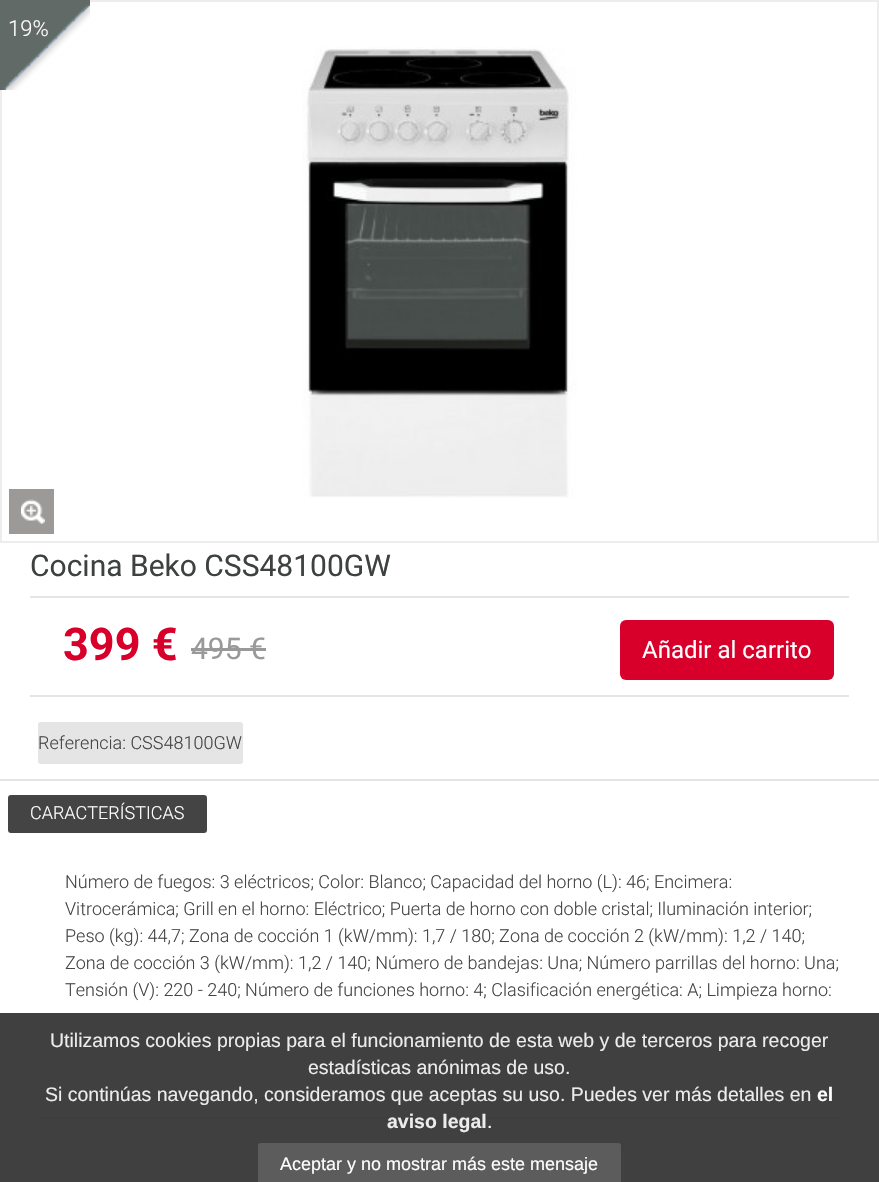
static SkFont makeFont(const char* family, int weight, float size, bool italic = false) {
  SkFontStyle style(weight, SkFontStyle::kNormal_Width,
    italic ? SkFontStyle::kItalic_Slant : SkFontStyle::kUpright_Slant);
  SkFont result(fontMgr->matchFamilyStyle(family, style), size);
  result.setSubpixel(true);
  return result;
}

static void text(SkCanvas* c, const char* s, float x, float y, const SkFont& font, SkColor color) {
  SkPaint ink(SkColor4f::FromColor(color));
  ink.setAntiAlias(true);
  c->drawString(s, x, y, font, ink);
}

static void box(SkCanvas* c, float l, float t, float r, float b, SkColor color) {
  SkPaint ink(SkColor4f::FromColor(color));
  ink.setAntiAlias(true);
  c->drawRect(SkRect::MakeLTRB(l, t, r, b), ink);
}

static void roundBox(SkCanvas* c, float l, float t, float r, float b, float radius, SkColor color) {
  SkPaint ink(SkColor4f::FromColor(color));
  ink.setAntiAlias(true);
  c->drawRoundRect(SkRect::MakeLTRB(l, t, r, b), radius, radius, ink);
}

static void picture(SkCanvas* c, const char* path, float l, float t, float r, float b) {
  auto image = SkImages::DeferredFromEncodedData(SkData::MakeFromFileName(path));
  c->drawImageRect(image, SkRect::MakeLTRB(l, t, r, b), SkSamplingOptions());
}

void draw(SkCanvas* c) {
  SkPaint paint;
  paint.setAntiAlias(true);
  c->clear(0xffffffff);
  paint.setStyle(SkPaint::kStroke_Style);
  paint.setStrokeWidth(2);
  paint.setColor(0xffededed);
  c->drawRect(SkRect::MakeLTRB(1, 1, 878, 542), paint);
  picture(c, "img_01.png", 302, 47, 577, 498);
  box(c, 9, 489, 54, 534, 0xff9c9999);
  picture(c, "img_02.png", 21, 499, 45, 524);
  picture(c, "img_03.png", 0, 0, 90, 90);
  SkFont face1 = makeFont("Roboto", 300, 22);
  text(c, "19%", 8, 36, face1, 0xffffffff);
  SkFont face2 = makeFont("Roboto", 400, 30);
  text(c, "Cocina Beko CSS48100GW", 30, 576, face2, 0xff3e4141);
  box(c, 30, 596, 849, 598, 0xffe5e5e5);
  box(c, 30, 695, 849, 697, 0xffe5e5e5);
  SkFont face3 = makeFont("Roboto", 700, 45);
  text(c, "399 €", 63, 660, face3, 0xffd8002b);
  text(c, "495 €", 191, 659, face2, 0xff999999);
  box(c, 191, 648, 266, 651, 0xff999999);
  roundBox(c, 620, 620, 834, 680, 6, 0xffd8002b);
  SkFont face4 = makeFont("Roboto", 400, 24);
  text(c, "Añadir al carrito", 642, 658, face4, 0xffffffff);
  roundBox(c, 38, 722, 243, 764, 3, 0xffe5e5e5);
  SkFont face5 = makeFont("Roboto", 300, 18);
  text(c, "Referencia: CSS48100GW", 38, 749, face5, 0xff444444);
  box(c, 0, 779, 879, 781, 0xffe5e5e5);
  roundBox(c, 8, 795, 207, 833, 3, 0xff444444);
  text(c, "CARACTERÍSTICAS", 30, 819, face5, 0xffffffff);
  paint.setStrokeWidth(1.5f);
  paint.setColor(0xffcccccc);
  paint.setPathEffect(SkDashPathEffect::Make({{1.5f, 1.5f}}, 0));
  c->drawPath(SkPathBuilder().moveTo(37.5f, 1118).lineTo(841.5f, 1118).detach(), paint);
  paint.setPathEffect(nullptr);
  text(c, "Número de fuegos: 3 eléctricos; Color: Blanco; Capacidad del horno (L): 46; Encimera:", 65, 888, face5, 0xff444444);
  text(c, "Vitrocerámica; Grill en el horno: Eléctrico; Puerta de horno con doble cristal; Iluminación interior;", 65, 915, face5, 0xff444444);
  text(c, "Peso (kg): 44,7; Zona de cocción 1 (kW/mm): 1,7 / 180; Zona de cocción 2 (kW/mm): 1,2 / 140;", 65, 942, face5, 0xff444444);
  text(c, "Zona de cocción 3 (kW/mm): 1,2 / 140; Número de bandejas: Una; Número parrillas del horno: Una;", 65, 969, face5, 0xff444444);
  text(c, "Tensión (V): 220 - 240; Número de funciones horno: 4; Clasificación energética: A; Limpieza horno:", 65, 996, face5, 0xff444444);
  box(c, 0, 1013, 879, 1182, 0xe62b2b2b);
  SkFont face6 = makeFont("Liberation Sans", 400, 19.5f);
  text(c, "Utilizamos cookies propias para el funcionamiento de esta web y de terceros para recoger", 50, 1047, face6, 0xffececec);
  text(c, "estadísticas anónimas de uso.", 308, 1074, face6, 0xffececec);
  text(c, "Si continúas navegando, consideramos que aceptas su uso. Puedes ver más detalles en", 45, 1101, face6, 0xffececec);
  SkFont face7 = makeFont("Liberation Sans", 700, 19.5f);
  text(c, "el", 817, 1101, face7, 0xffffffff);
  text(c, "aviso legal", 387, 1128, face7, 0xffececec);
  text(c, ".", 487, 1128, face6, 0xffffffff);
  roundBox(c, 258, 1143, 621, 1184, 3, 0xff5c5c5c);
  SkFont face8 = makeFont("Liberation Sans", 400, 18);
  text(c, "Aceptar y no mostrar más este mensaje", 280, 1170, face8, 0xffffffff);
}
